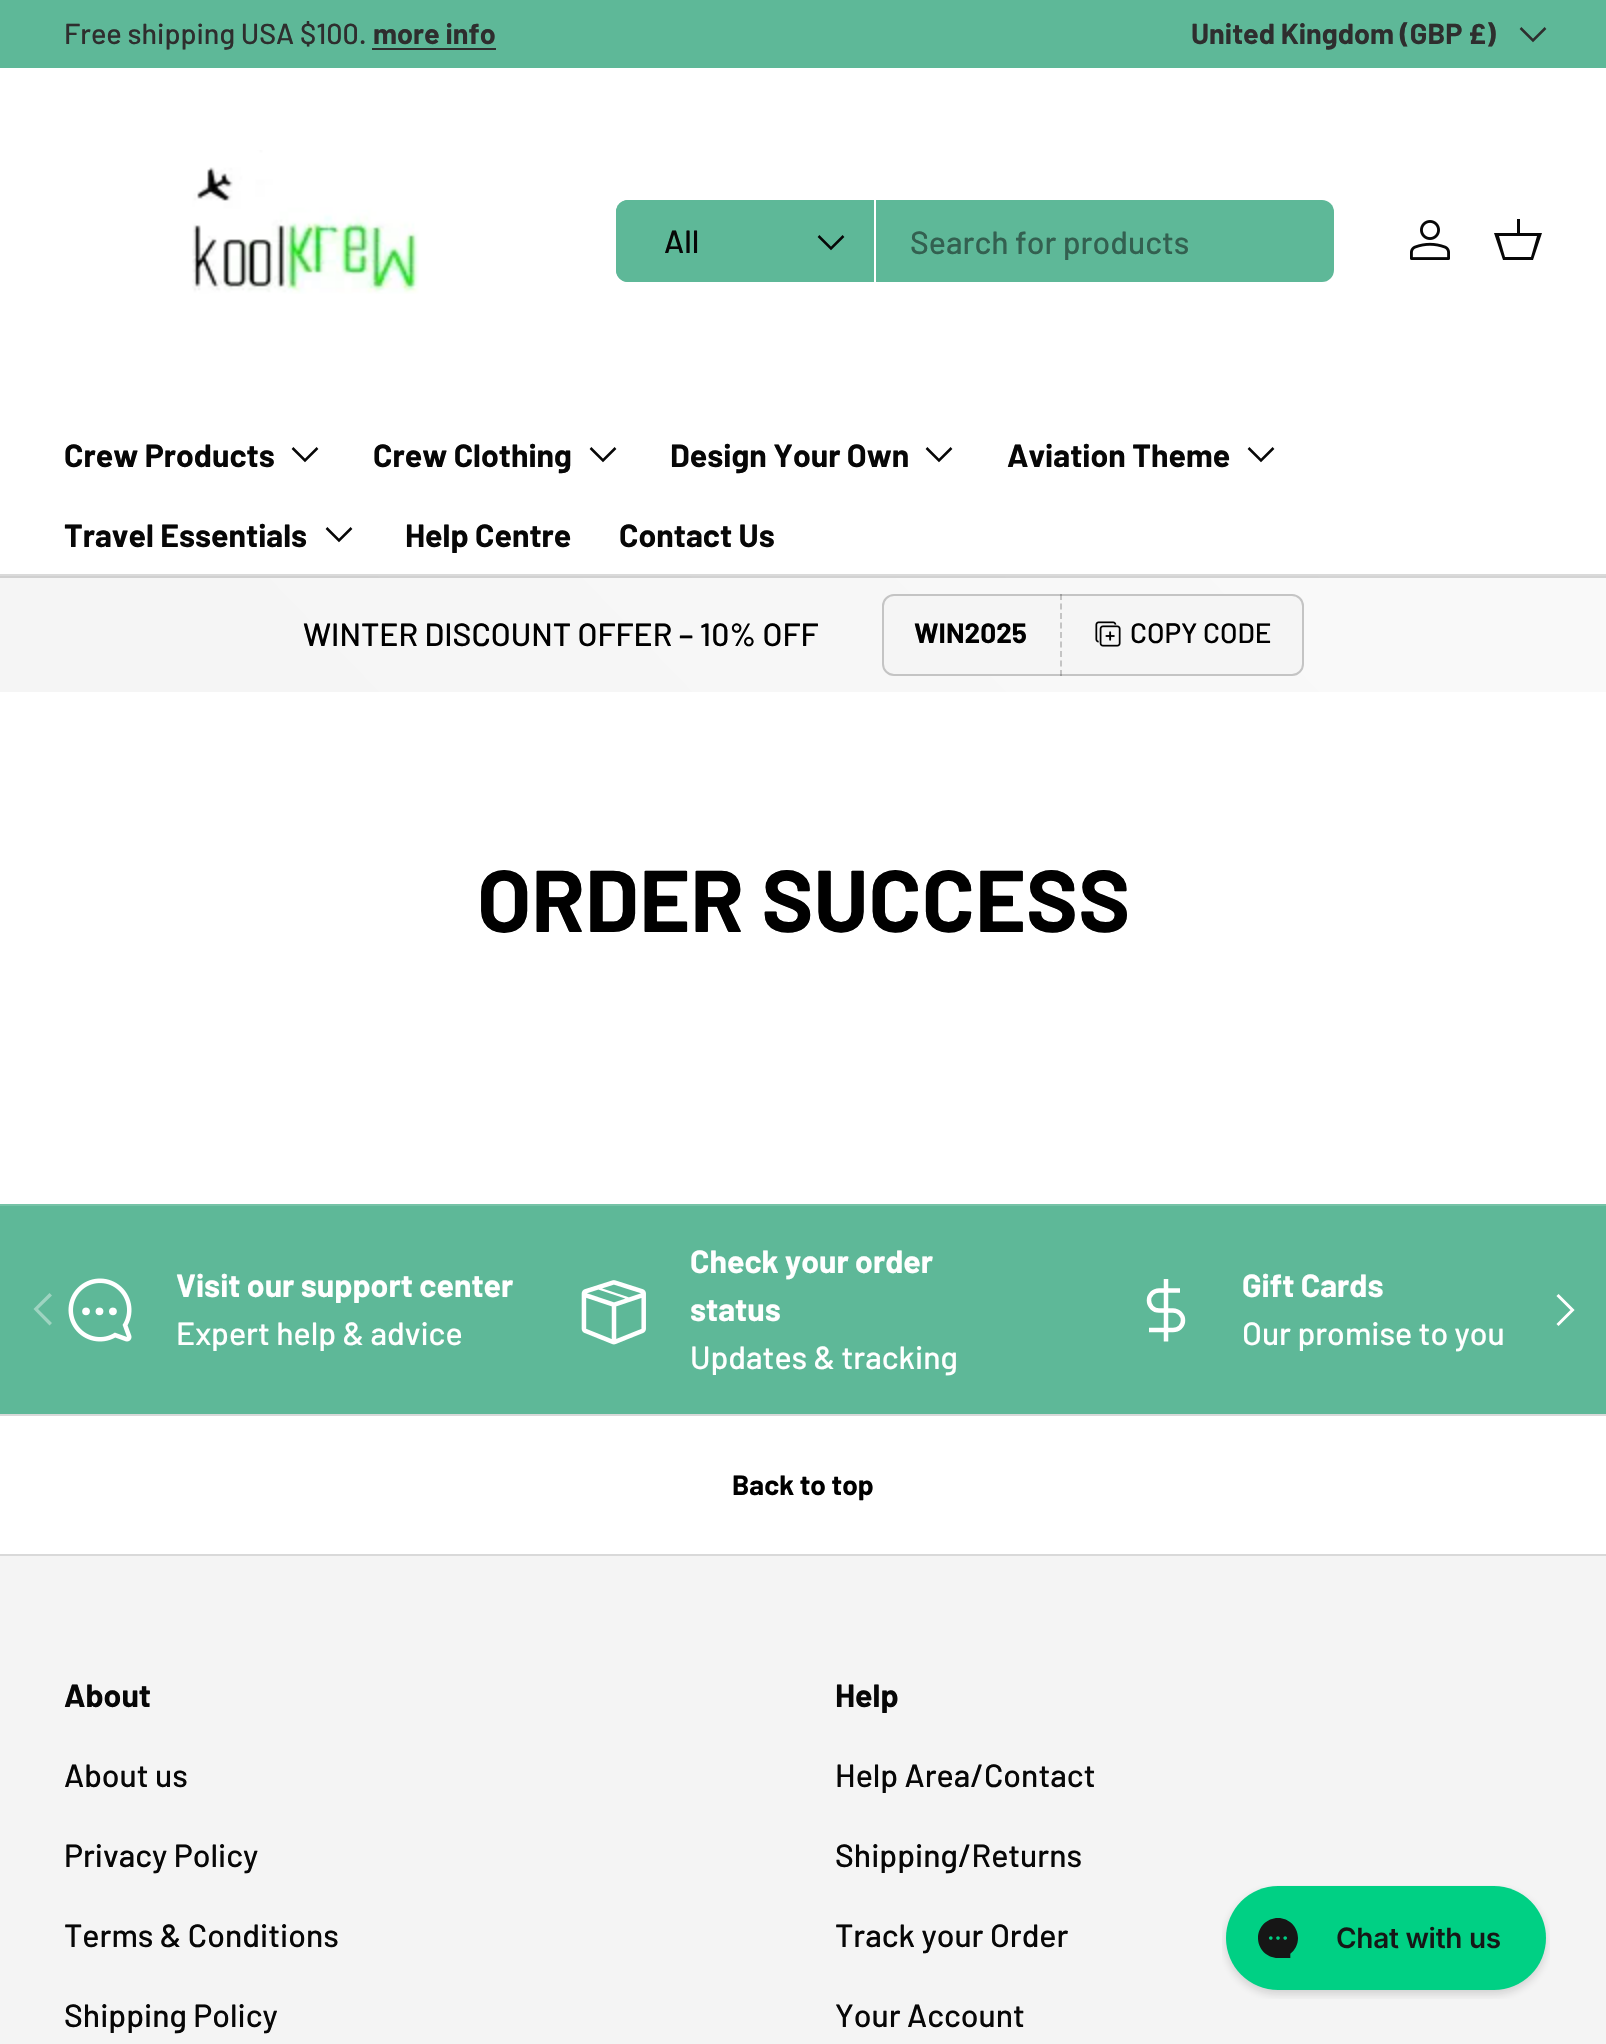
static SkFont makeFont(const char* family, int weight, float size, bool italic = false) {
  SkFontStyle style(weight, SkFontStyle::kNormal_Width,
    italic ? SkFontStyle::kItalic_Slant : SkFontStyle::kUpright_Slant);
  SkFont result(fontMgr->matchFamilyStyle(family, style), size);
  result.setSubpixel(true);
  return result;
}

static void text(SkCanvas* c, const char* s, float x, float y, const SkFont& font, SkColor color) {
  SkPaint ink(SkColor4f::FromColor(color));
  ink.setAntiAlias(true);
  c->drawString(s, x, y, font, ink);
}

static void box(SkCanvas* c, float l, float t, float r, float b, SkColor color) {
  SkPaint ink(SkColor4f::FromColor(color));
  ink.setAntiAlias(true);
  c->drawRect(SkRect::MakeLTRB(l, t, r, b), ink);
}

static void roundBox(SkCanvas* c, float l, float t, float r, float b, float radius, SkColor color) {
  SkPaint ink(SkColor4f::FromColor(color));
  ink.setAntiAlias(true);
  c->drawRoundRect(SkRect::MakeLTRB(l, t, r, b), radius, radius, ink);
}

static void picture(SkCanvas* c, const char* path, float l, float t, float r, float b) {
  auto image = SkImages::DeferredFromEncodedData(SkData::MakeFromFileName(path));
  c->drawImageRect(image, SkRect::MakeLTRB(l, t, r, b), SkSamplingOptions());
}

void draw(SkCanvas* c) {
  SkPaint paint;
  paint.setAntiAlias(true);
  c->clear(0xffffffff);
  box(c, 0, 0, 1606, 68, 0xff5eb898);
  SkFont face1 = makeFont("Barlow", 500, 28.75f);
  text(c, "Free shipping USA $100.", 64, 44, face1, 0xff2e2e2e);
  SkFont face2 = makeFont("Barlow", 700, 28.75f);
  text(c, "more info", 373, 44, face2, 0xff2e2e2e);
  box(c, 372, 48, 496, 50, 0xff2e2e2e);
  text(c, "United Kingdom (GBP £)", 1191, 44, face2, 0xff2e2e2e);
  paint.setStyle(SkPaint::kStroke_Style);
  paint.setStrokeWidth(2.5f);
  paint.setColor(0xff2e2e2e);
  c->drawPath(SkPathBuilder().moveTo(1545.5f, 28).lineTo(1533, 40.5f).lineTo(1520.5f, 28).detach(), paint);
  box(c, 0, 574, 1606, 576, 0xffdadada);
  picture(c, "img_01.png", 192, 150, 419, 294);
  roundBox(c, 616, 200, 1334, 282, 12, 0xff5eb898);
  paint.setStyle(SkPaint::kFill_Style);
  paint.setColor(0xff5eb898);
  c->drawPath(SkPathBuilder().moveTo(628, 200).lineTo(876, 200).lineTo(876, 282).lineTo(628, 282).cubicTo(621.5f, 282, 616, 276.5f, 616, 270).lineTo(616, 212).cubicTo(616, 205.5f, 621.5f, 200, 628, 200).close().detach(), paint);
  box(c, 874, 200, 876, 282, 0xffffffff);
  SkFont face3 = makeFont("Barlow", 500, 32);
  text(c, "All", 664, 253, face3, 0xff070707);
  paint.setStyle(SkPaint::kStroke_Style);
  paint.setColor(0xff070707);
  c->drawPath(SkPathBuilder().moveTo(843.5f, 236).lineTo(831, 248.5f).lineTo(818.5f, 236).detach(), paint);
  c->save();
  c->clipRect(SkRect::MakeLTRB(910, 222, 1306, 260));
  text(c, "Search for products", 910, 254, face3, 0xff336050);
  c->restore();
  picture(c, "img_02.png", 1410, 220, 1450, 260);
  paint.setStyle(SkPaint::kFill_Style);
  c->drawPath(SkPathBuilder().moveTo(1517, 233).lineTo(1517, 219).lineTo(1520, 219).lineTo(1520, 233).lineTo(1542, 233).lineTo(1533, 260).lineTo(1503, 260).lineTo(1494, 233).close().moveTo(1499, 236).lineTo(1505, 257).lineTo(1531, 257).lineTo(1537, 236).close().detach(), paint);
  SkFont face4 = makeFont("Barlow", 700, 32);
  text(c, "Crew Products", 64, 467, face4, 0xff070707);
  paint.setStyle(SkPaint::kStroke_Style);
  c->drawPath(SkPathBuilder().moveTo(317.5f, 448).lineTo(305, 460.5f).lineTo(292.5f, 448).detach(), paint);
  text(c, "Crew Clothing", 373, 467, face4, 0xff070707);
  c->drawPath(SkPathBuilder().moveTo(615.5f, 448).lineTo(603, 460.5f).lineTo(590.5f, 448).detach(), paint);
  text(c, "Design Your Own", 670, 467, face4, 0xff070707);
  c->drawPath(SkPathBuilder().moveTo(951.5f, 448).lineTo(939, 460.5f).lineTo(926.5f, 448).detach(), paint);
  text(c, "Aviation Theme", 1007, 467, face4, 0xff070707);
  c->drawPath(SkPathBuilder().moveTo(1273.5f, 448).lineTo(1261, 460.5f).lineTo(1248.5f, 448).detach(), paint);
  text(c, "Travel Essentials", 64, 547, face4, 0xff070707);
  c->drawPath(SkPathBuilder().moveTo(351.5f, 528).lineTo(339, 540.5f).lineTo(326.5f, 528).detach(), paint);
  text(c, "Help Centre", 405, 547, face4, 0xff070707);
  text(c, "Contact Us", 619, 547, face4, 0xff070707);
  paint.setStyle(SkPaint::kFill_Style);
  {
    const SkColor colors[] = {0xffd0d0d0, 0xffd4d4d4};
    const float stops[] = {0.13f, 0.86f};
    const SkPoint ends[] = {{359, 950}, {1247, 92}};
    paint.setShader(SkGradientShader::MakeLinear(ends, colors, stops, 2, SkTileMode::kClamp));
    paint.setAlpha(255);
  }
  c->drawRect(SkRect::MakeLTRB(0, 576, 1606, 578), paint);
  {
    const SkColor colors[] = {0xfff5f5f5, 0xfff9f9f9};
    const float stops[] = {0.13f, 0.86f};
    const SkPoint ends[] = {{359, 1064}, {1247, 206}};
    paint.setShader(SkGradientShader::MakeLinear(ends, colors, stops, 2, SkTileMode::kClamp));
    paint.setAlpha(255);
  }
  c->drawRect(SkRect::MakeLTRB(0, 578, 1606, 692), paint);
  text(c, "WINTER DISCOUNT OFFER – 10% OFF", 303, 646, face3, 0xff000000);
  paint.setShader(nullptr);
  paint.setColor(0xfff5f5f5);
  c->drawRoundRect(SkRect::MakeLTRB(883, 595, 1303, 675), 11, 11, paint);
  paint.setStyle(SkPaint::kStroke_Style);
  paint.setStrokeWidth(2);
  paint.setColor(0xffc4c4c4);
  c->drawRoundRect(SkRect::MakeLTRB(883, 595, 1303, 675), 11, 11, paint);
  SkFont face5 = makeFont("Barlow", 700, 28);
  text(c, "WIN2025", 914, 643, face5, 0xff000000);
  paint.setColor(0x33000000);
  paint.setPathEffect(SkDashPathEffect::Make({{6, 3.5f}}, 0));
  c->drawPath(SkPathBuilder().moveTo(1061, 594).lineTo(1061, 676).detach(), paint);
  paint.setPathEffect(nullptr);
  picture(c, "img_03.png", 1095, 621, 1121, 647);
  SkFont face6 = makeFont("Barlow", 500, 28);
  text(c, "COPY CODE", 1130, 643, face6, 0xff000000);
  SkFont face7 = makeFont("Barlow", 700, 87.5f);
  text(c, "ORDER SUCCESS", 477, 932, face7, 0xff000000);
  box(c, 0, 1206, 1606, 1414, 0xff5eb898);
  box(c, 0, 1204, 1606, 1206, 0xff76c3a7);
  picture(c, "img_04.png", 68, 1278, 132, 1342);
  text(c, "Visit our support center", 176, 1297, face4, 0xffffffff);
  text(c, "Expert help & advice", 176, 1345, face3, 0xffffffff);
  picture(c, "img_05.png", 581, 1280, 646, 1345);
  text(c, "Check your order", 690, 1273, face4, 0xffffffff);
  text(c, "status", 690, 1321, face4, 0xffffffff);
  text(c, "Updates & tracking", 690, 1369, face3, 0xffffffff);
  paint.setStrokeWidth(4.5f);
  paint.setColor(0xffffffff);
  c->drawPath(SkPathBuilder().moveTo(1166, 1279).lineTo(1166, 1341.5f).moveTo(1180, 1290.5f).lineTo(1159, 1290.5f).cubicTo(1153.5f, 1290.5f, 1149, 1295, 1149, 1300.5f).cubicTo(1149, 1306, 1153.5f, 1310.5f, 1159, 1310.5f).lineTo(1173, 1310.5f).cubicTo(1178.5f, 1310.5f, 1183, 1315, 1183, 1320.5f).cubicTo(1183, 1326, 1178.5f, 1330, 1173, 1330).lineTo(1149, 1330).detach(), paint);
  text(c, "Gift Cards", 1242, 1297, face4, 0xffffffff);
  text(c, "Our promise to you", 1242, 1345, face3, 0xffffffff);
  paint.setStyle(SkPaint::kFill_Style);
  paint.setColor(0xff9ed4c1);
  c->drawPath(SkPathBuilder().moveTo(33.5f, 1309).lineTo(49.5f, 1293).lineTo(52, 1295.5f).lineTo(38, 1309).lineTo(52, 1323).lineTo(49.5f, 1325.5f).close().detach(), paint);
  paint.setStyle(SkPaint::kStroke_Style);
  paint.setStrokeWidth(3);
  paint.setColor(0xffffffff);
  c->drawPath(SkPathBuilder().moveTo(1557.5f, 1295).lineTo(1572.5f, 1310).lineTo(1557.5f, 1325).detach(), paint);
  box(c, 0, 1414, 1606, 1416, 0xffd9d9d9);
  box(c, 0, 1554, 1606, 1556, 0xffd9d9d9);
  text(c, "Back to top", 732, 1495, face5, 0xff000000);
  box(c, 0, 1556, 1606, 2044, 0xfff4f4f4);
  text(c, "About", 64, 1707, face4, 0xff070707);
  text(c, "About us", 64, 1787, face3, 0xff070707);
  text(c, "Privacy Policy", 64, 1867, face3, 0xff070707);
  text(c, "Terms & Conditions", 64, 1947, face3, 0xff070707);
  text(c, "Shipping Policy", 64, 2027, face3, 0xff070707);
  text(c, "Help", 835, 1707, face4, 0xff070707);
  text(c, "Help Area/Contact", 835, 1787, face3, 0xff070707);
  text(c, "Shipping/Returns", 835, 1867, face3, 0xff070707);
  text(c, "Track your Order", 835, 1947, face3, 0xff070707);
  text(c, "Your Account", 835, 2027, face3, 0xff070707);
  picture(c, "img_06.png", 1222, 1885, 1550, 1999);
}
